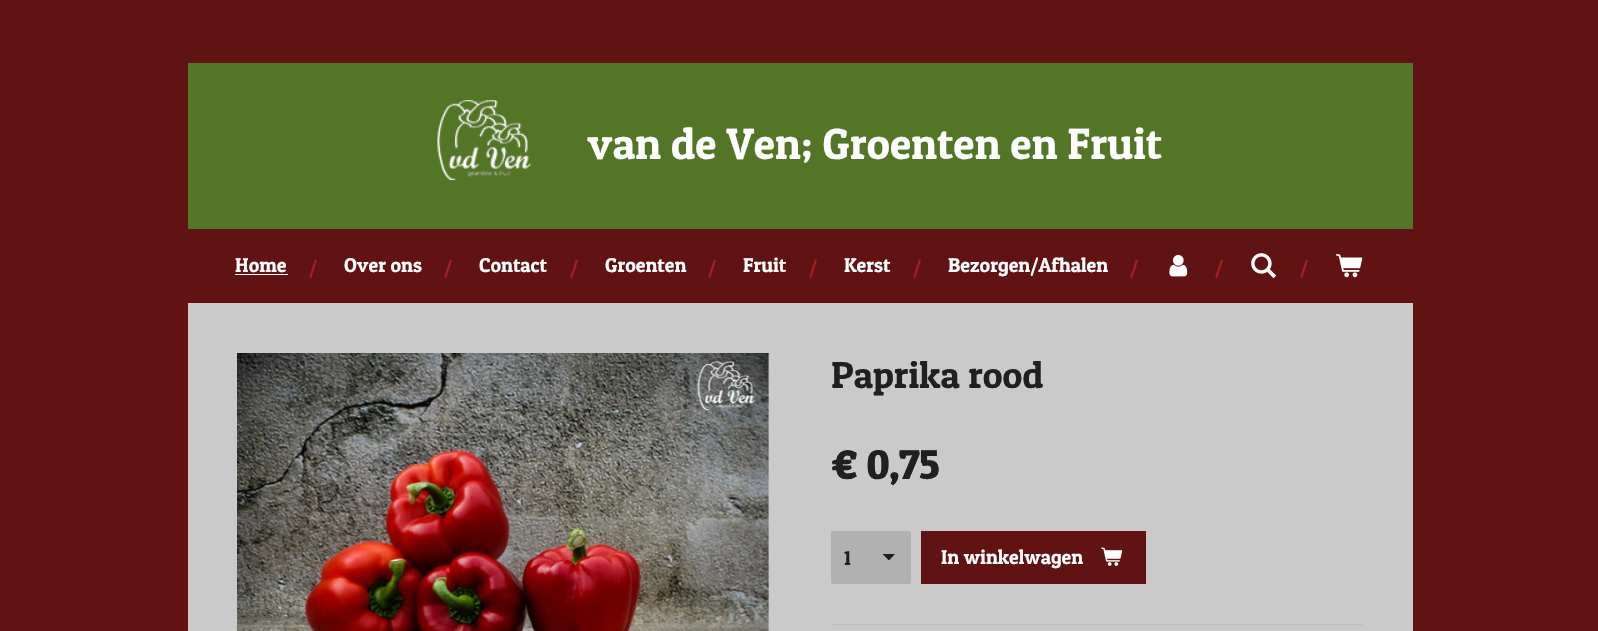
static SkFont makeFont(const char* family, int weight, float size, bool italic = false) {
  SkFontStyle style(weight, SkFontStyle::kNormal_Width,
    italic ? SkFontStyle::kItalic_Slant : SkFontStyle::kUpright_Slant);
  SkFont result(fontMgr->matchFamilyStyle(family, style), size);
  result.setSubpixel(true);
  return result;
}

static void text(SkCanvas* c, const char* s, float x, float y, const SkFont& font, SkColor color) {
  SkPaint ink(SkColor4f::FromColor(color));
  ink.setAntiAlias(true);
  c->drawString(s, x, y, font, ink);
}

static void box(SkCanvas* c, float l, float t, float r, float b, SkColor color) {
  SkPaint ink(SkColor4f::FromColor(color));
  ink.setAntiAlias(true);
  c->drawRect(SkRect::MakeLTRB(l, t, r, b), ink);
}

static void roundBox(SkCanvas* c, float l, float t, float r, float b, float radius, SkColor color) {
  SkPaint ink(SkColor4f::FromColor(color));
  ink.setAntiAlias(true);
  c->drawRoundRect(SkRect::MakeLTRB(l, t, r, b), radius, radius, ink);
}

static void picture(SkCanvas* c, const char* path, float l, float t, float r, float b) {
  auto image = SkImages::DeferredFromEncodedData(SkData::MakeFromFileName(path));
  c->drawImageRect(image, SkRect::MakeLTRB(l, t, r, b), SkSamplingOptions());
}

void draw(SkCanvas* c) {
  SkPaint paint;
  paint.setAntiAlias(true);
  c->clear(0xff611313);
  box(c, 188, 63, 1413, 229, 0xff537626);
  picture(c, "img_01.png", 437, 100, 532, 180);
  SkFont face1 = makeFont("Patua One", 400, 43.75f);
  text(c, "van de Ven; Groenten en Fruit", 587, 159, face1, 0xffffffff);
  SkFont face2 = makeFont("Patua One", 400, 20);
  text(c, "Home", 235, 272, face2, 0xffffffff);
  box(c, 235, 274, 288, 275, 0xffffffff);
  text(c, "/", 309, 274, face2, 0xffa12020);
  text(c, "Over ons", 344, 272, face2, 0xffffffff);
  text(c, "/", 444, 274, face2, 0xffa12020);
  text(c, "Contact", 479, 272, face2, 0xffffffff);
  text(c, "/", 570, 274, face2, 0xffa12020);
  text(c, "Groenten", 605, 272, face2, 0xffffffff);
  text(c, "/", 708, 274, face2, 0xffa12020);
  text(c, "Fruit", 743, 272, face2, 0xffffffff);
  text(c, "/", 809, 274, face2, 0xffa12020);
  text(c, "Kerst", 844, 272, face2, 0xffffffff);
  text(c, "/", 913, 274, face2, 0xffa12020);
  text(c, "Bezorgen/Afhalen", 948, 272, face2, 0xffffffff);
  text(c, "/", 1130, 274, face2, 0xffa12020);
  picture(c, "img_02.png", 1169, 255, 1188, 277);
  text(c, "/", 1215, 274, face2, 0xffa12020);
  picture(c, "img_03.png", 1251, 253, 1277, 279);
  text(c, "/", 1300, 274, face2, 0xffa12020);
  picture(c, "img_04.png", 1336, 254, 1363, 278);
  box(c, 188, 303, 1413, 631, 0xffcacaca);
  picture(c, "img_05.png", 237, 353, 769, 631);
  SkFont face3 = makeFont("Patua One", 400, 37.5f);
  text(c, "Paprika rood", 831, 388, face3, 0xff202020);
  SkFont face4 = makeFont("Patua One", 700, 40);
  text(c, "€ 0,75", 831, 479, face4, 0xff202020);
  roundBox(c, 831, 531, 911, 584, 2.5f, 0xffb1b1b1);
  c->save();
  c->clipRect(SkRect::MakeLTRB(883, 554, 895, 560));
  paint.setColor(0xff202020);
  c->drawPath(SkPathBuilder().moveTo(889, 560.5f).lineTo(882.5f, 554).lineTo(895, 554).close().detach(), paint);
  c->restore();
  text(c, "1", 844, 565, face2, 0xff202020);
  box(c, 921, 531, 1146, 584, 0xff611313);
  text(c, "In winkelwagen", 941, 564, face2, 0xffffffff);
  picture(c, "img_06.png", 1101, 547, 1123, 566);
  box(c, 831, 624, 1363, 625, 0xffbebebe);
}
